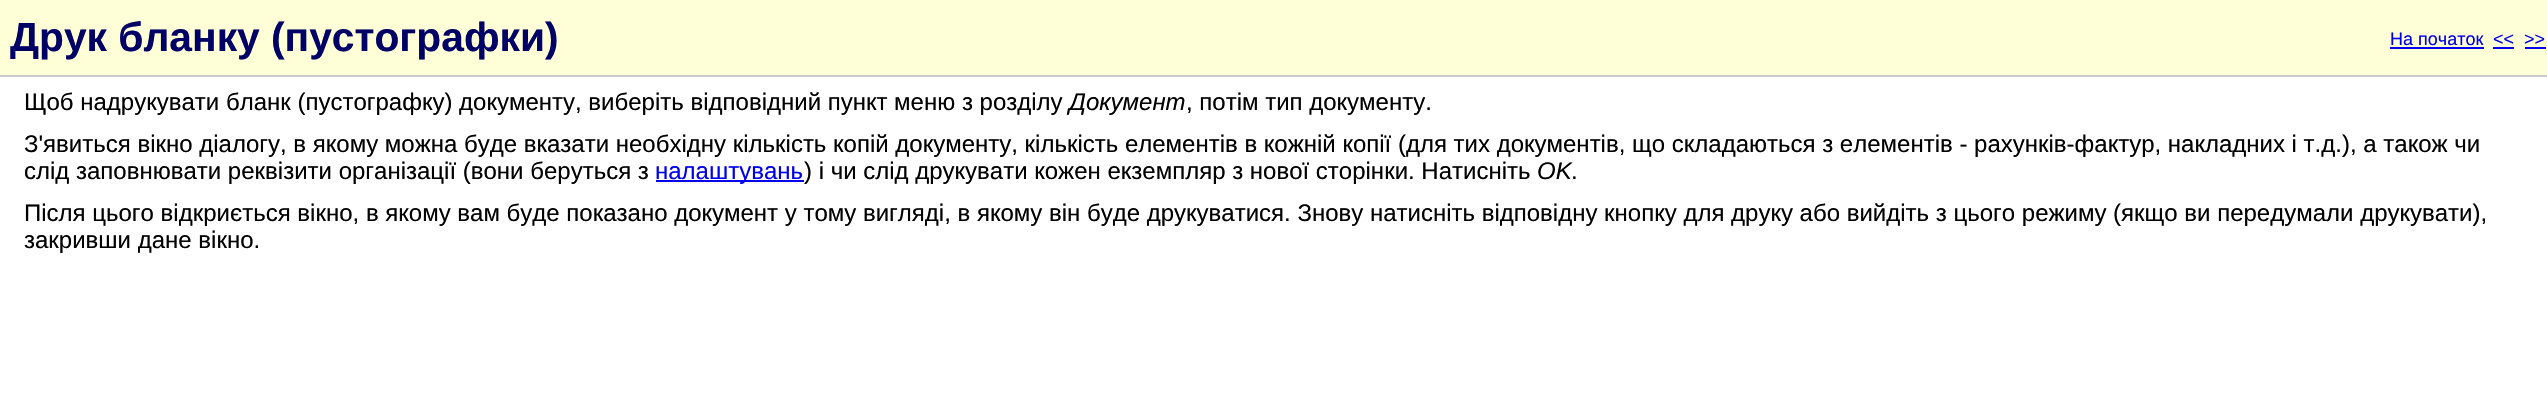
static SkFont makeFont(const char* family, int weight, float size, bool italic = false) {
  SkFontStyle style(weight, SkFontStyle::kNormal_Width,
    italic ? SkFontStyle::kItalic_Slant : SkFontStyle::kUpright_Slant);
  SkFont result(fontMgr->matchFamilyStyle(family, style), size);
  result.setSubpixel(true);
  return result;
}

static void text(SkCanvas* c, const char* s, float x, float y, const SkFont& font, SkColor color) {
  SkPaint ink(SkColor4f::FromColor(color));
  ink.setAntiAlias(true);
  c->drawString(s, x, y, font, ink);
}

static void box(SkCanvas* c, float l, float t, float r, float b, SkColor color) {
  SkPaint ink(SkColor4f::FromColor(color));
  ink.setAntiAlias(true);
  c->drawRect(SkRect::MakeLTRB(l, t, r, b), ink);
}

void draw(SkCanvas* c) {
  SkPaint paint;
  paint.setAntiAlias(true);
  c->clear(0xffffffff);
  box(c, 0, 0, 2547, 75, 0xffffffd7);
  SkFont face1 = makeFont("Liberation Sans", 700, 40.75f);
  text(c, "Друк бланку (пустографки)", 10, 51, face1, 0xff000066);
  box(c, 0, 75, 2547, 77, 0xffcacaca);
  SkFont face2 = makeFont("Liberation Sans", 400, 18);
  text(c, "На початок", 2390, 45, face2, 0xff0000ee);
  box(c, 2390, 47, 2484, 49, 0xff0000ee);
  text(c, "<<", 2493, 45, face2, 0xff0000ee);
  box(c, 2493, 47, 2514, 49, 0xff0000ee);
  text(c, ">>", 2524, 45, face2, 0xff0000ee);
  box(c, 2525, 47, 2546, 49, 0xff0000ee);
  SkFont face3 = makeFont("Liberation Sans", 400, 24);
  text(c, "Щоб надрукувати бланк (пустографку) документу, виберіть відповідний пункт меню з розділу", 24, 110, face3, 0xff000000);
  SkFont face4 = makeFont("Liberation Sans", 400, 24, true);
  text(c, "Документ", 1069, 110, face4, 0xff000000);
  text(c, ", потім тип документу.", 1186, 110, face3, 0xff000000);
  text(c, "З'явиться вікно діалогу, в якому можна буде вказати необхідну кількість копій документу, кількість елементів в кожній копії (для тих документів, що складаються з елементів - рахунків-фактур, накладних і т.д.), а також чи", 24, 152, face3, 0xff000000);
  text(c, "слід заповнювати реквізити організації (вони беруться з", 24, 179, face3, 0xff000000);
  box(c, 656, 180, 804, 182, 0xff0000ee);
  text(c, "налаштувань", 655, 179, face3, 0xff0000ee);
  text(c, ") і чи слід друкувати кожен екземпляр з нової сторінки. Натисніть", 804, 179, face3, 0xff000000);
  text(c, "OK", 1537, 179, face4, 0xff000000);
  text(c, ".", 1571, 179, face3, 0xff000000);
  text(c, "Після цього відкриється вікно, в якому вам буде показано документ у тому вигляді, в якому він буде друкуватися. Знову натисніть відповідну кнопку для друку або вийдіть з цього режиму (якщо ви передумали друкувати),", 24, 221, face3, 0xff000000);
  text(c, "закривши дане вікно.", 24, 248, face3, 0xff000000);
}
